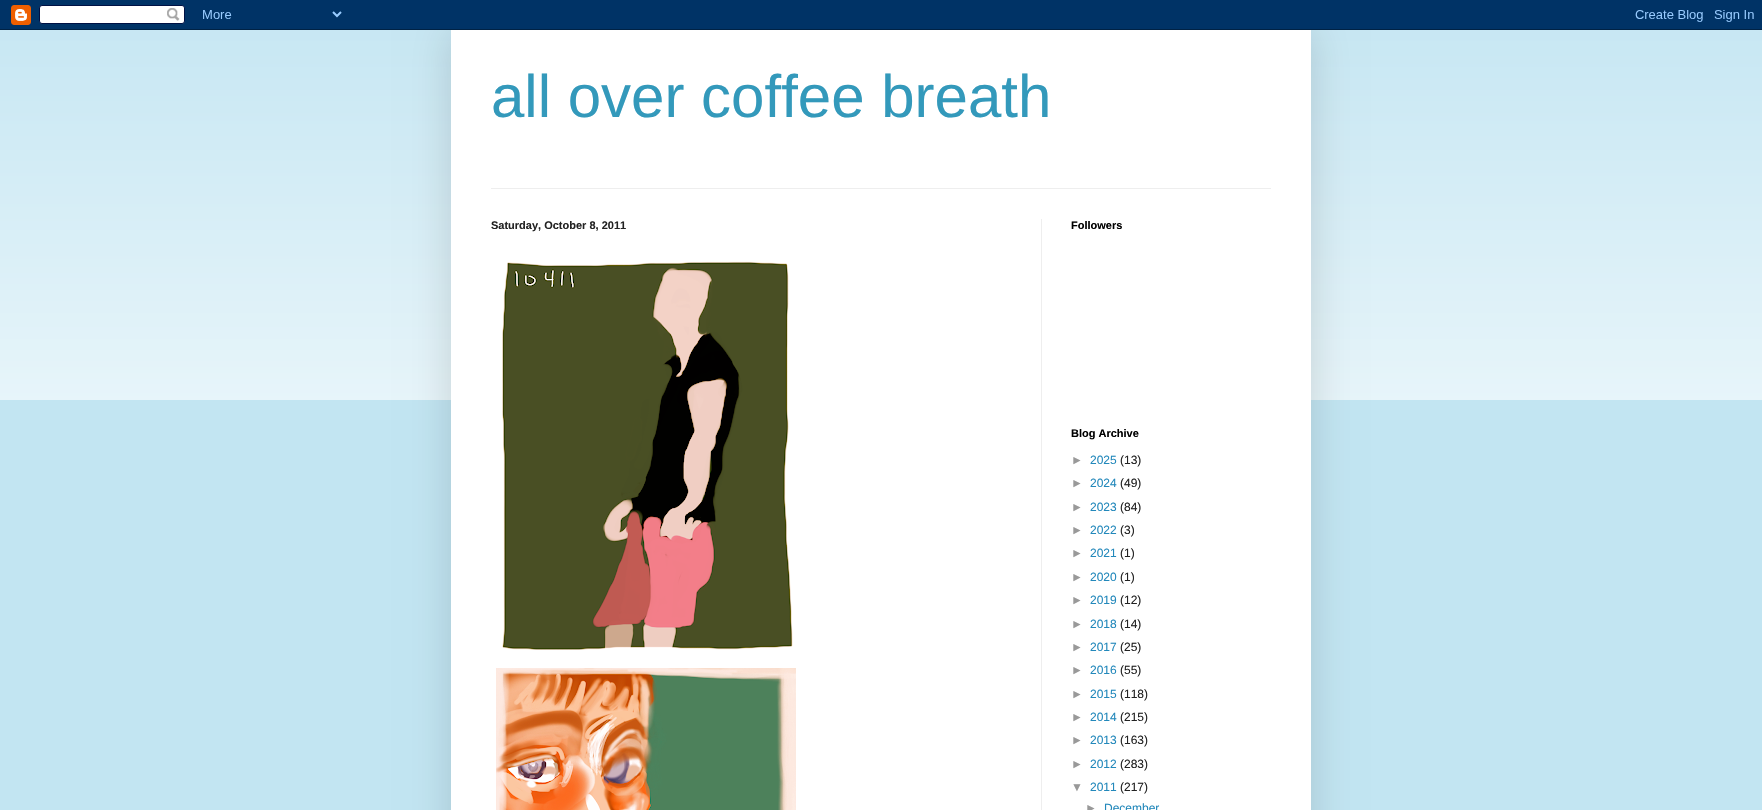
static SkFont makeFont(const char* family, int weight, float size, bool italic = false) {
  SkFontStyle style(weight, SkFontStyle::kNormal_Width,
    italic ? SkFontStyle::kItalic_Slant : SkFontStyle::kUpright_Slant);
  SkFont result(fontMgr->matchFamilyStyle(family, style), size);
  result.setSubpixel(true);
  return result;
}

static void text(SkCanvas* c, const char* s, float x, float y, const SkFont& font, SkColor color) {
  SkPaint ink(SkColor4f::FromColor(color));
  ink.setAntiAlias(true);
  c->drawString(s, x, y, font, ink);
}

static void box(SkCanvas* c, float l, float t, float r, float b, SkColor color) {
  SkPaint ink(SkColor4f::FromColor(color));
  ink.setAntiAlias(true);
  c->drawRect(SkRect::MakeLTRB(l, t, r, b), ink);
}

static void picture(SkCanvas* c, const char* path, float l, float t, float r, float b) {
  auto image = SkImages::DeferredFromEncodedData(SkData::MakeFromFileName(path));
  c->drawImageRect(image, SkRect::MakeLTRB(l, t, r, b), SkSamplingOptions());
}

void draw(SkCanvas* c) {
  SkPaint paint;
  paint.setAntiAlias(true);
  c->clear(0xffc2e5f2);
  picture(c, "img_02.png", 0, 30, 1762, 400);
  paint.setColor(0x26000000);
  paint.setMaskFilter(SkMaskFilter::MakeBlur(kNormal_SkBlurStyle, 20));
  c->drawRect(SkRect::MakeLTRB(451, 30, 1311, 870), paint);
  paint.setMaskFilter(nullptr);
  picture(c, "img_01.png", 0, 0, 1762, 30);
  box(c, 451, 30, 1311, 810, 0xffffffff);
  SkFont face1 = makeFont("Liberation Sans", 400, 60);
  text(c, "all over coffee breath", 491, 117, face1, 0xff3399bb);
  box(c, 491, 188, 1271, 189, 0xffeeeeee);
  box(c, 1041, 219, 1042, 810, 0xffeeeeee);
  SkFont face2 = makeFont("Liberation Sans", 700, 11);
  text(c, "Saturday, October 8, 2011", 491, 229, face2, 0xff222222);
  picture(c, "img_03.png", 502, 261, 793, 650);
  picture(c, "img_04.png", 496, 668, 796, 810);
  text(c, "Followers", 1071, 229, face2, 0xff000000);
  text(c, "Blog Archive", 1071, 437, face2, 0xff000000);
  SkFont face3 = makeFont("Liberation Sans", 400, 12);
  text(c, "►", 1071, 464, face3, 0xff999999);
  text(c, "2025", 1090, 464, face3, 0xff2288bb);
  text(c, "(13)", 1120, 464, face3, 0xff222222);
  text(c, "►", 1071, 487, face3, 0xff999999);
  text(c, "2024", 1090, 487, face3, 0xff2288bb);
  text(c, "(49)", 1120, 487, face3, 0xff222222);
  text(c, "►", 1071, 511, face3, 0xff999999);
  text(c, "2023", 1090, 511, face3, 0xff2288bb);
  text(c, "(84)", 1120, 511, face3, 0xff222222);
  text(c, "►", 1071, 534, face3, 0xff999999);
  text(c, "2022", 1090, 534, face3, 0xff2288bb);
  text(c, "(3)", 1120, 534, face3, 0xff222222);
  text(c, "►", 1071, 557, face3, 0xff999999);
  text(c, "2021", 1090, 557, face3, 0xff2288bb);
  text(c, "(1)", 1120, 557, face3, 0xff222222);
  text(c, "►", 1071, 581, face3, 0xff999999);
  text(c, "2020", 1090, 581, face3, 0xff2288bb);
  text(c, "(1)", 1120, 581, face3, 0xff222222);
  text(c, "►", 1071, 604, face3, 0xff999999);
  text(c, "2019", 1090, 604, face3, 0xff2288bb);
  text(c, "(12)", 1120, 604, face3, 0xff222222);
  text(c, "►", 1071, 628, face3, 0xff999999);
  text(c, "2018", 1090, 628, face3, 0xff2288bb);
  text(c, "(14)", 1120, 628, face3, 0xff222222);
  text(c, "►", 1071, 651, face3, 0xff999999);
  text(c, "2017", 1090, 651, face3, 0xff2288bb);
  text(c, "(25)", 1120, 651, face3, 0xff222222);
  text(c, "►", 1071, 674, face3, 0xff999999);
  text(c, "2016", 1090, 674, face3, 0xff2288bb);
  text(c, "(55)", 1120, 674, face3, 0xff222222);
  text(c, "►", 1071, 698, face3, 0xff999999);
  text(c, "2015", 1090, 698, face3, 0xff2288bb);
  text(c, "(118)", 1120, 698, face3, 0xff222222);
  text(c, "►", 1071, 721, face3, 0xff999999);
  text(c, "2014", 1090, 721, face3, 0xff2288bb);
  text(c, "(215)", 1120, 721, face3, 0xff222222);
  text(c, "►", 1071, 744, face3, 0xff999999);
  text(c, "2013", 1090, 744, face3, 0xff2288bb);
  text(c, "(163)", 1120, 744, face3, 0xff222222);
  text(c, "►", 1071, 768, face3, 0xff999999);
  text(c, "2012", 1090, 768, face3, 0xff2288bb);
  text(c, "(283)", 1120, 768, face3, 0xff222222);
  text(c, "▼", 1071, 791, face3, 0xff999999);
  text(c, "2011", 1090, 791, face3, 0xff2288bb);
  text(c, "(217)", 1120, 791, face3, 0xff222222);
  text(c, "►", 1085, 812, face3, 0xff999999);
  text(c, "December", 1104, 812, face3, 0xff2288bb);
}
